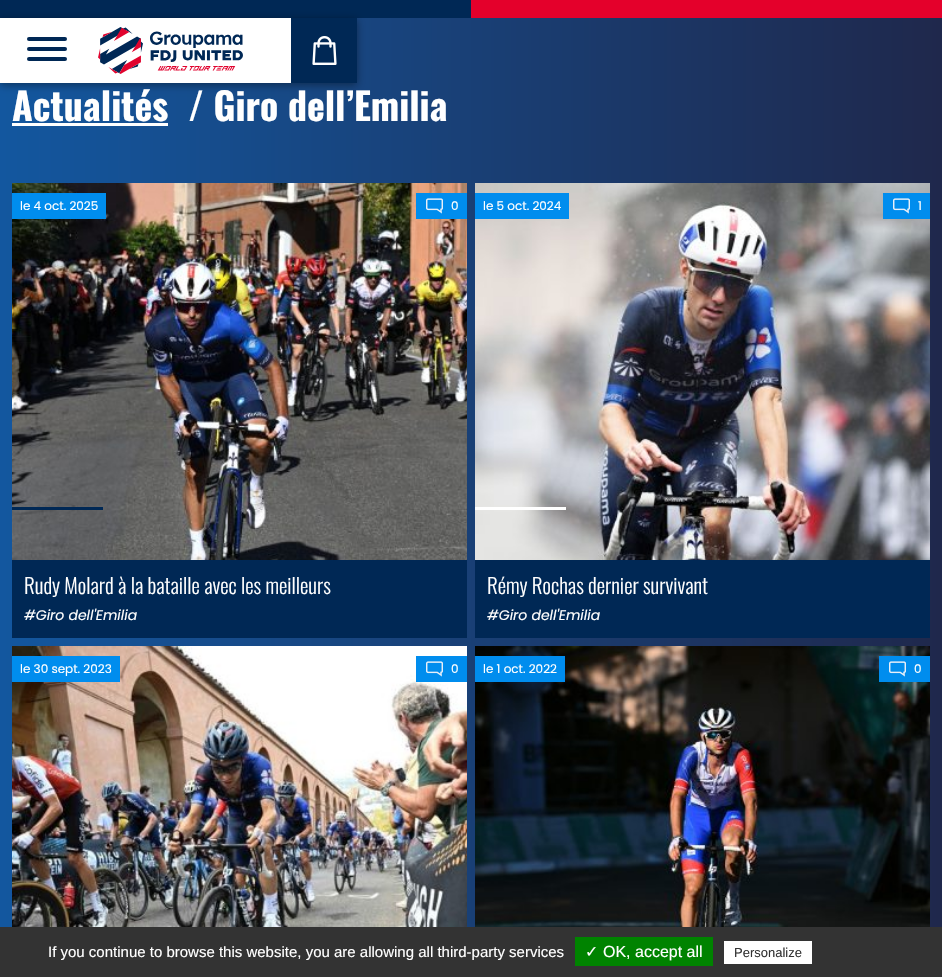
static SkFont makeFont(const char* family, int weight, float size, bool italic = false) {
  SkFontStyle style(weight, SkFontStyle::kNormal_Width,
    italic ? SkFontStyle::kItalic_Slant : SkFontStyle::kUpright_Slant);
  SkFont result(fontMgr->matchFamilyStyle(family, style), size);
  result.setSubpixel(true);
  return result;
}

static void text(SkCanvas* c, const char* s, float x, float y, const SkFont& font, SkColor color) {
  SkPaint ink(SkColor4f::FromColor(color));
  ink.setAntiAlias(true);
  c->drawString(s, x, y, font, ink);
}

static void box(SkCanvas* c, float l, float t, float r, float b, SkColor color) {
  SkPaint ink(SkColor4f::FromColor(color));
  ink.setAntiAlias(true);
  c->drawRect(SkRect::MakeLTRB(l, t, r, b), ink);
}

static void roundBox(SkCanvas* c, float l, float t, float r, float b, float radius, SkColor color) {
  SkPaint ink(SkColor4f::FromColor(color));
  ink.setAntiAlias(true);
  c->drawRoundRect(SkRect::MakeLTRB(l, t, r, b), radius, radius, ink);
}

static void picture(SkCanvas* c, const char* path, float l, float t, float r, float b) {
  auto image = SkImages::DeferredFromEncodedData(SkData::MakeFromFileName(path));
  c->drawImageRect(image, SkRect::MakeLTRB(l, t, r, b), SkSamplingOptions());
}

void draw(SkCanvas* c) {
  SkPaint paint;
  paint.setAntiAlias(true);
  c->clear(0xffffffff);
  {
    const SkColor colors[] = {0xff13579f, 0xff1f284c};
    const float stops[] = {0, 1};
    const SkPoint ends[] = {{0, 896}, {942, 896}};
    paint.setShader(SkGradientShader::MakeLinear(ends, colors, stops, 2, SkTileMode::kClamp));
    paint.setAlpha(255);
  }
  c->drawRect(SkRect::MakeLTRB(0, 18, 942, 927), paint);
  box(c, 471, 0, 942, 18, 0xffe4002b);
  box(c, 0, 0, 471, 18, 0xff002855);
  paint.setShader(nullptr);
  paint.setColor(0x66000000);
  paint.setMaskFilter(SkMaskFilter::MakeBlur(kNormal_SkBlurStyle, 4));
  c->drawRect(SkRect::MakeLTRB(0, 20, 357, 85), paint);
  paint.setMaskFilter(nullptr);
  box(c, 0, 18, 291, 83, 0xffffffff);
  roundBox(c, 27, 47, 67, 51, 2, 0xff002855);
  roundBox(c, 27, 37, 67, 41, 2, 0xff002855);
  roundBox(c, 27, 57, 67, 61, 2, 0xff002855);
  picture(c, "img_01.png", 98, 27, 243, 74);
  box(c, 291, 18, 357, 83, 0xff002855);
  picture(c, "img_02.png", 312, 36, 337, 65);
  SkFont face1 = makeFont("Oswald", 700, 37.75f);
  text(c, "Actualités", 12, 121, face1, 0xffffffff);
  box(c, 12, 123, 168, 126, 0xffffffff);
  text(c, "/ Giro dell’Emilia", 188, 121, face1, 0xffffffff);
  picture(c, "img_03.png", 12, 183, 467, 560);
  box(c, 12, 193, 106, 219, 0xff008dee);
  SkFont face2 = makeFont("Poppins", 400, 12);
  text(c, "le 4 oct. 2025", 20, 210, face2, 0xffffffff);
  box(c, 416, 193, 467, 219, 0xff008dee);
  picture(c, "img_04.png", 426, 198, 443, 214);
  text(c, "0", 451, 210, face2, 0xffffffff);
  box(c, 12, 560, 467, 638, 0xff002855);
  SkFont face3 = makeFont("Oswald", 300, 21);
  text(c, "Rudy Molard à la bataille avec les meilleurs", 24, 594, face3, 0xffffffff);
  SkFont face4 = makeFont("Poppins", 400, 14, true);
  text(c, "#Giro dell'Emilia", 24, 620, face4, 0xffffffff);
  box(c, 12, 507, 103, 510, 0xff002855);
  picture(c, "img_05.png", 475, 183, 930, 560);
  box(c, 475, 193, 569, 219, 0xff008dee);
  text(c, "le 5 oct. 2024", 483, 210, face2, 0xffffffff);
  box(c, 883, 193, 930, 219, 0xff008dee);
  picture(c, "img_04.png", 893, 198, 910, 214);
  text(c, "1", 918, 210, face2, 0xffffffff);
  box(c, 475, 560, 930, 638, 0xff002855);
  text(c, "Rémy Rochas dernier survivant", 487, 594, face3, 0xffffffff);
  text(c, "#Giro dell'Emilia", 487, 620, face4, 0xffffffff);
  box(c, 475, 507, 566, 510, 0xffffffff);
  picture(c, "img_06.png", 12, 646, 467, 927);
  box(c, 12, 656, 120, 682, 0xff008dee);
  text(c, "le 30 sept. 2023", 20, 673, face2, 0xffffffff);
  box(c, 416, 656, 467, 682, 0xff008dee);
  picture(c, "img_04.png", 426, 661, 443, 677);
  text(c, "0", 451, 673, face2, 0xffffffff);
  picture(c, "img_07.png", 475, 646, 930, 927);
  box(c, 475, 656, 565, 682, 0xff008dee);
  text(c, "le 1 oct. 2022", 483, 673, face2, 0xffffffff);
  box(c, 879, 656, 930, 682, 0xff008dee);
  picture(c, "img_04.png", 889, 661, 906, 677);
  text(c, "0", 914, 673, face2, 0xffffffff);
  box(c, 0, 927, 942, 977, 0xff333333);
  SkFont face5 = makeFont("Liberation Sans", 400, 15);
  text(c, "If you continue to browse this website, you are allowing all third-party services", 48, 957, face5, 0xffffffff);
  box(c, 575, 937, 713, 966, 0xff008300);
  SkFont face6 = makeFont("DejaVu Sans", 400, 16);
  text(c, "✓", 585, 957, face6, 0xffffffff);
  SkFont face7 = makeFont("Liberation Sans", 400, 16);
  text(c, "OK, accept all", 603, 957, face7, 0xffffffff);
  box(c, 724, 941, 812, 964, 0xffffffff);
  SkFont face8 = makeFont("Liberation Sans", 400, 13);
  text(c, "Personalize", 734, 957, face8, 0xff333333);
}
